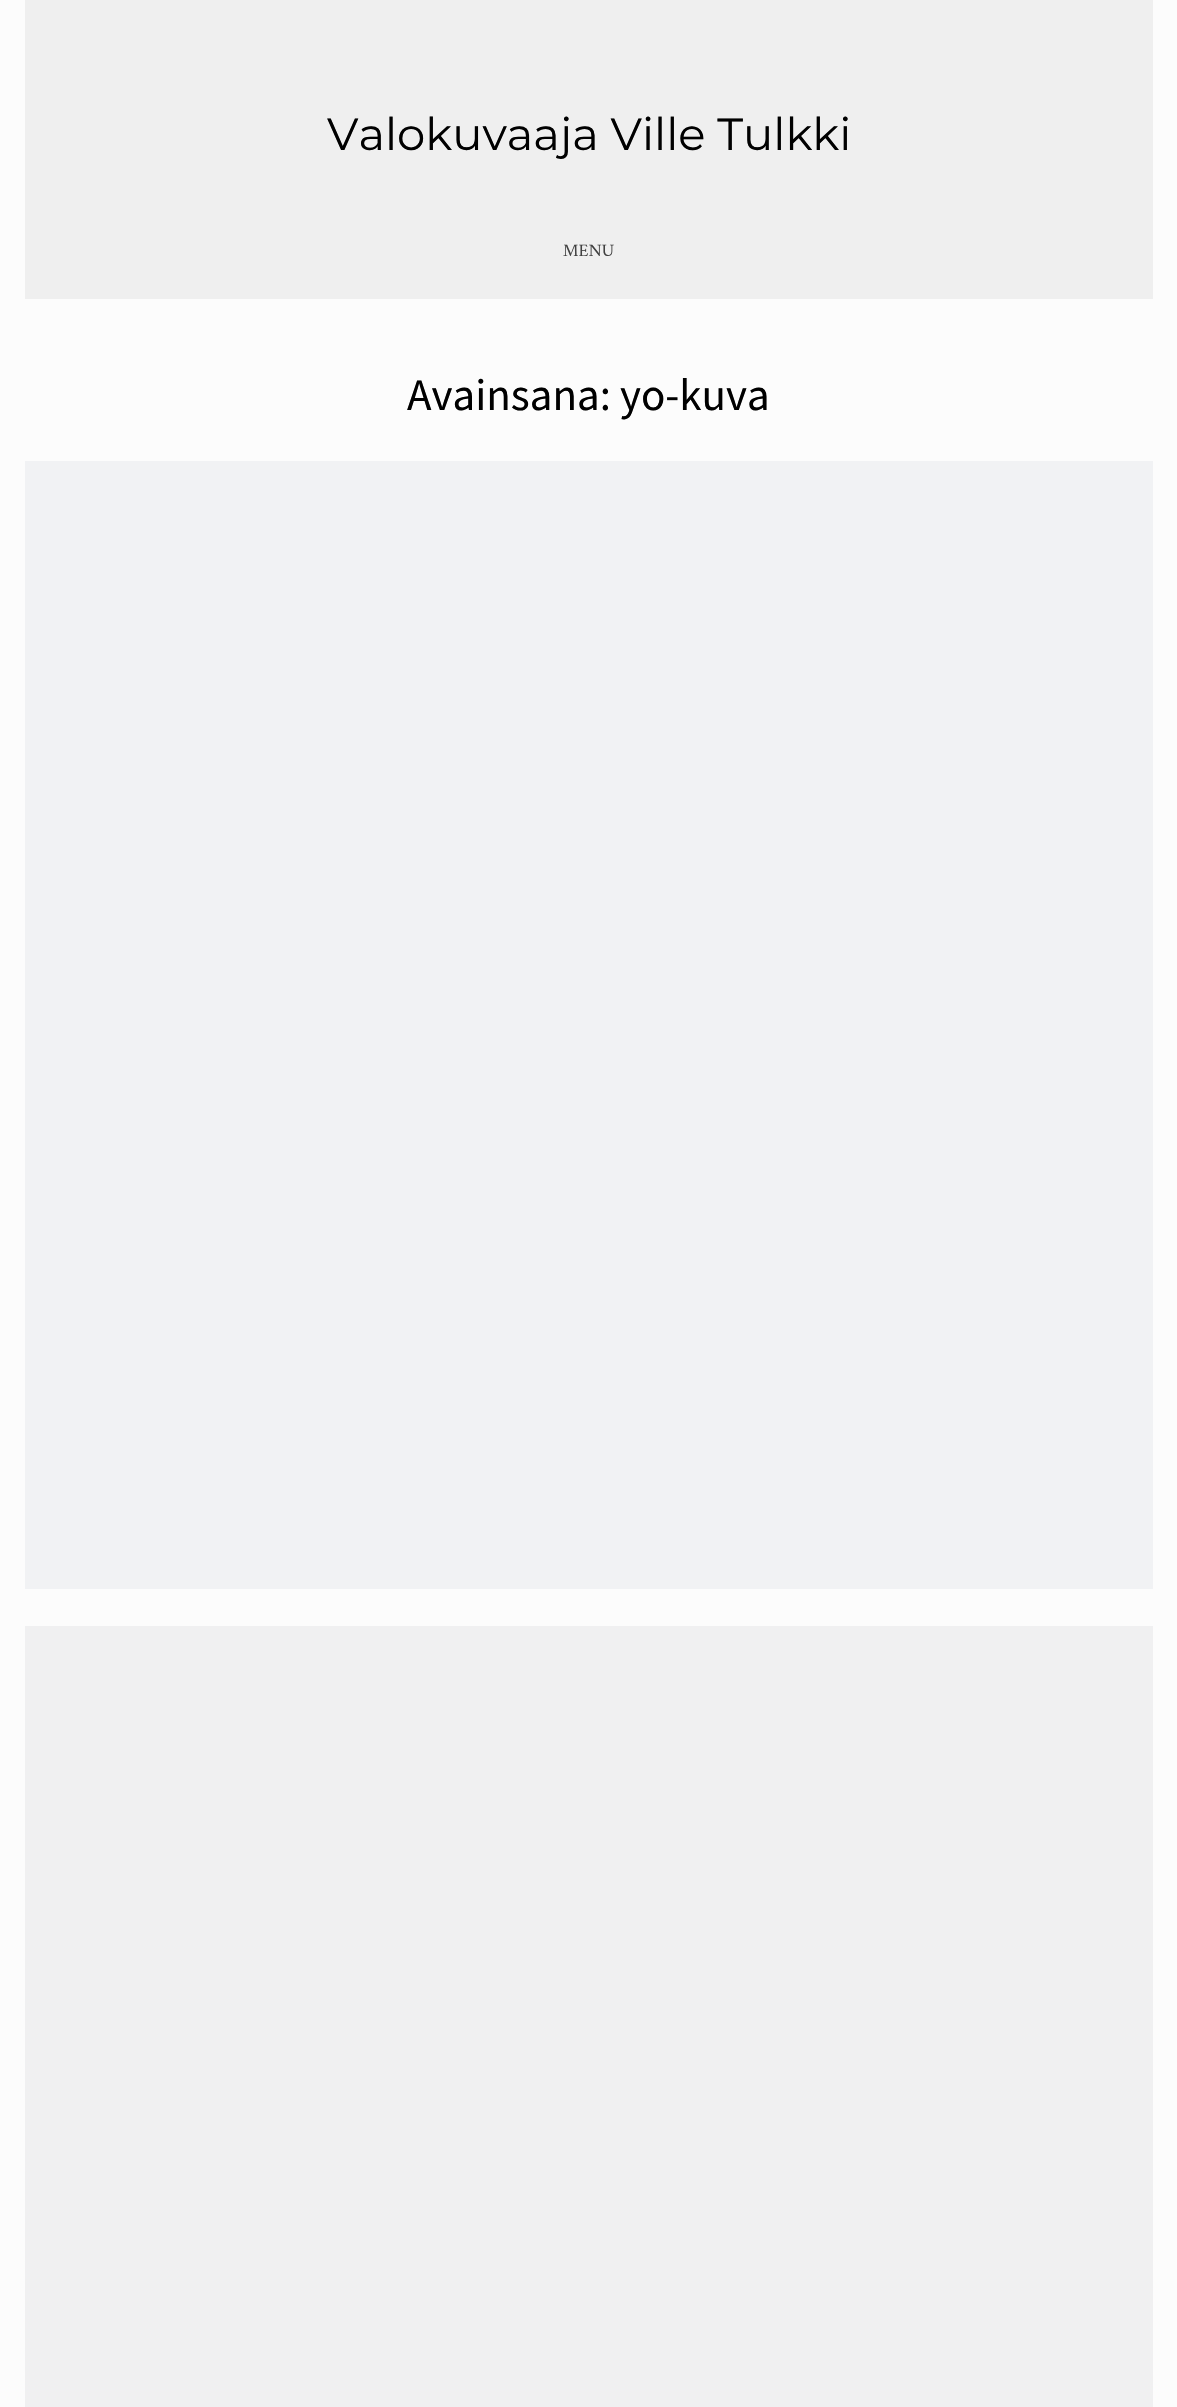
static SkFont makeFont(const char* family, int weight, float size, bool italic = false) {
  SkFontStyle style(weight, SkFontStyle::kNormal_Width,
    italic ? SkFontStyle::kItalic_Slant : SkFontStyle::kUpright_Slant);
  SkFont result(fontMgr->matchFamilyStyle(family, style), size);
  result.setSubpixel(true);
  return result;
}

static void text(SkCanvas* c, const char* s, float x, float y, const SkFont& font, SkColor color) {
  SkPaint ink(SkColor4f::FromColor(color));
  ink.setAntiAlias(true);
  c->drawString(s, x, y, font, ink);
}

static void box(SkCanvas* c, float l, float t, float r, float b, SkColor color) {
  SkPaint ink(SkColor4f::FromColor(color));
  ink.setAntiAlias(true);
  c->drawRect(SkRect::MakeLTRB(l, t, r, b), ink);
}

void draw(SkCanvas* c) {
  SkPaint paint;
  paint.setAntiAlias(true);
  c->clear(0xfffcfcfc);
  box(c, 25, 0, 1153, 299, 0xffefefef);
  SkFont face1 = makeFont("Montserrat", 400, 45);
  text(c, "Valokuvaaja Ville Tulkki", 327, 150, face1, 0xff000000);
  SkFont face2 = makeFont("Amiri", 400, 17.5f);
  text(c, "MENU", 563, 256, face2, 0xff404040);
  SkFont face3 = makeFont("Source Sans Pro", 400, 45);
  text(c, "Avainsana: yo-kuva", 407, 410, face3, 0xff000000);
  box(c, 25, 461, 1153, 1589, 0xfff1f2f4);
  box(c, 25, 1626, 1153, 2407, 0xfff0f0f1);
}
